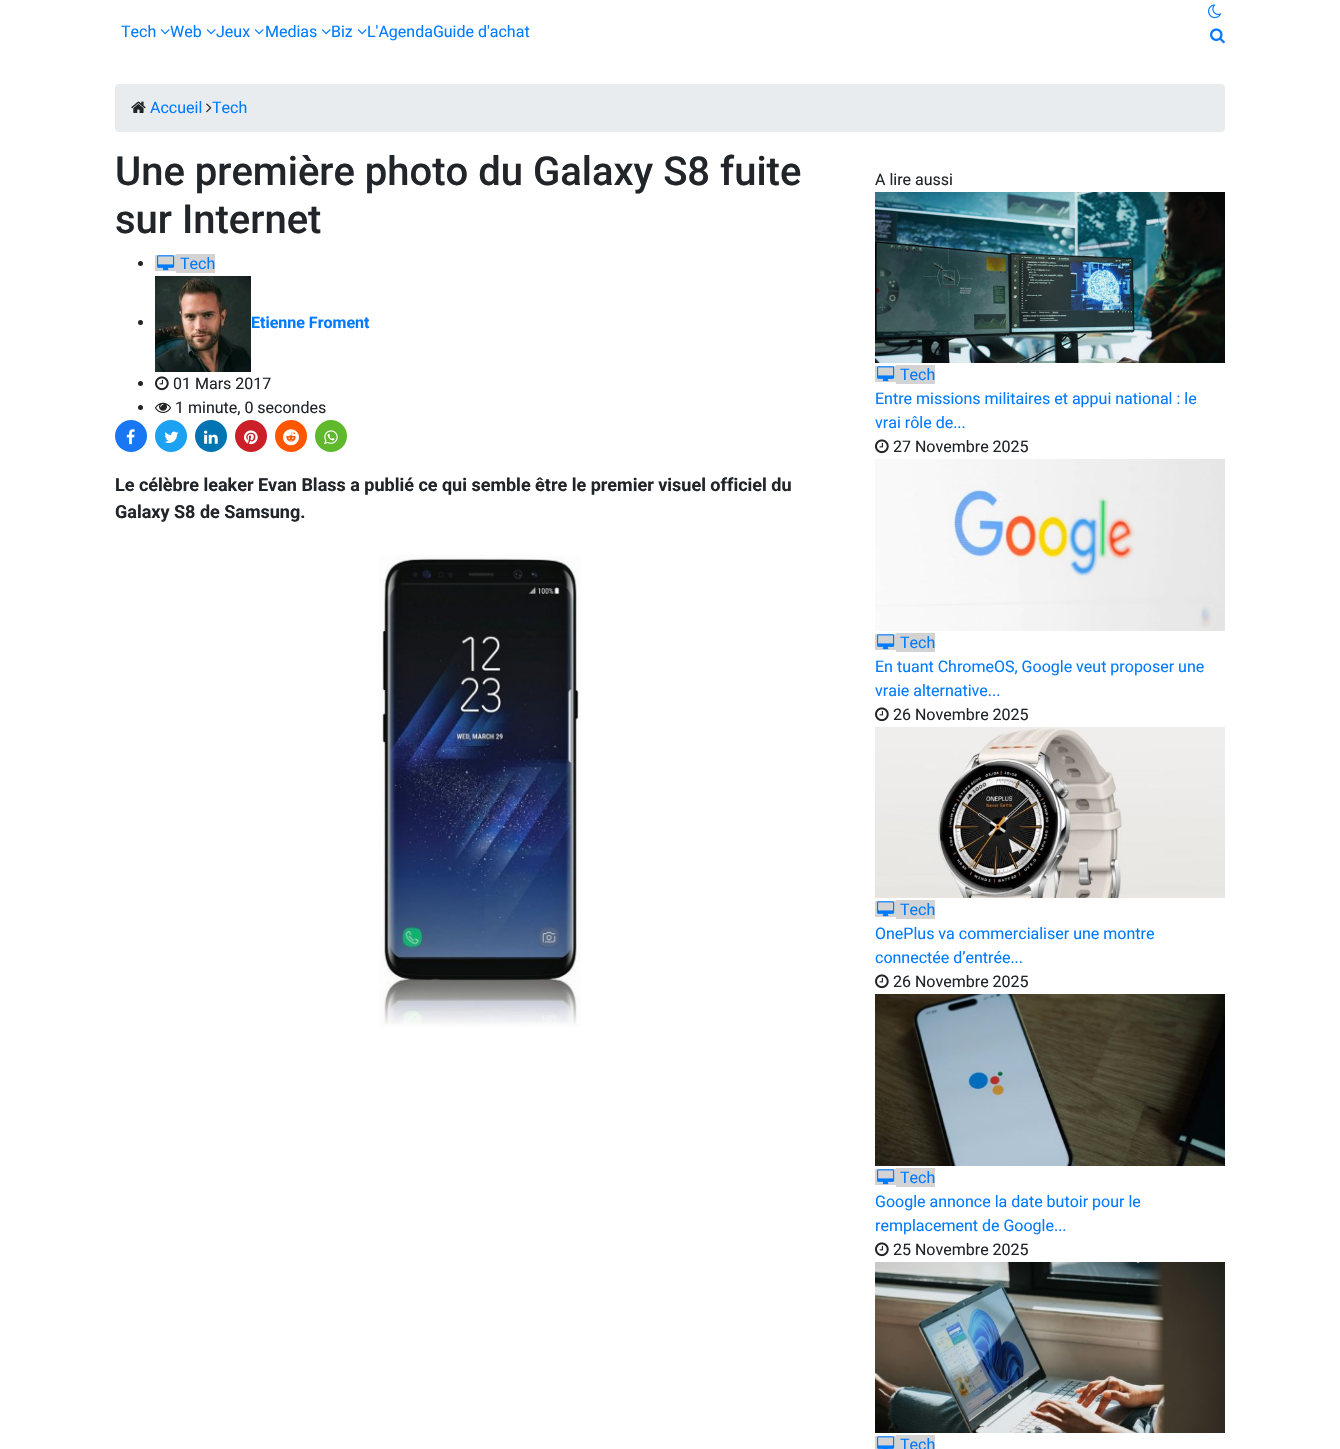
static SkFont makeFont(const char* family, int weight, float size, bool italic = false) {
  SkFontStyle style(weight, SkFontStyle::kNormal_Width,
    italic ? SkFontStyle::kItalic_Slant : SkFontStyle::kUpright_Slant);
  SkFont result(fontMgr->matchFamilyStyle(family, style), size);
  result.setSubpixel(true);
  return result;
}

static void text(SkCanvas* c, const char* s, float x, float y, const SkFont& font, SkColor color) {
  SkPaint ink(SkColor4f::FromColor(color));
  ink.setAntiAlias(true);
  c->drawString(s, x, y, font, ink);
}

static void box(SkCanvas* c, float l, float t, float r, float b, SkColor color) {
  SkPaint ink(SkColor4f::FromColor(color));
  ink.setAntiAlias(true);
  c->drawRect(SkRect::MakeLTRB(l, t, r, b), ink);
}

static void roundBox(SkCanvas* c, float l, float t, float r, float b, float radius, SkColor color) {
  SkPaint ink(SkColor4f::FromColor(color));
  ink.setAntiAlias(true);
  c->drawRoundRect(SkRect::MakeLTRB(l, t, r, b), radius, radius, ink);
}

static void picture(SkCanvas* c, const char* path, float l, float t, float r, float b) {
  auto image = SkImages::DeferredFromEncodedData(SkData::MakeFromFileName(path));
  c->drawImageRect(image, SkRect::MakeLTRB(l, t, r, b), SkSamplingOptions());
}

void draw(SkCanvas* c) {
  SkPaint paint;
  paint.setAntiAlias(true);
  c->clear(0xffffffff);
  SkFont face1 = makeFont("Roboto", 400, 16);
  text(c, "Tech", 121, 37, face1, 0xff007bff);
  picture(c, "img_01.png", 160, 29, 170, 35);
  text(c, "Web", 170, 37, face1, 0xff007bff);
  picture(c, "img_01.png", 206, 29, 216, 35);
  text(c, "Jeux", 216, 37, face1, 0xff007bff);
  picture(c, "img_01.png", 254, 29, 264, 35);
  text(c, "Medias", 265, 37, face1, 0xff007bff);
  picture(c, "img_01.png", 321, 29, 331, 35);
  text(c, "Biz", 331, 37, face1, 0xff007bff);
  picture(c, "img_01.png", 357, 29, 367, 35);
  text(c, "L'AgendaGuide d'achat", 367, 37, face1, 0xff007bff);
  picture(c, "img_02.png", 1208, 4, 1222, 19);
  picture(c, "img_03.png", 1210, 28, 1225, 44);
  roundBox(c, 115, 84, 1225, 132, 4, 0xffe9ecef);
  picture(c, "img_04.png", 131, 101, 146, 113);
  text(c, "Accueil", 150, 113, face1, 0xff007bff);
  picture(c, "img_05.png", 206, 103, 212, 113);
  text(c, "Tech", 212, 113, face1, 0xff007bff);
  SkFont face2 = makeFont("Roboto", 500, 40);
  text(c, "Une première photo du Galaxy S8 fuite", 115, 185, face2, 0xff212529);
  text(c, "sur Internet", 115, 233, face2, 0xff212529);
  paint.setColor(0xff212529);
  c->drawCircle(140.5f, 263.5f, 2.5f, paint);
  box(c, 155, 255, 176, 271, 0xffd3d3d3);
  box(c, 176, 254, 215, 273, 0xffd3d3d3);
  picture(c, "img_06.png", 157, 255, 175, 271);
  text(c, "Tech", 180, 269, face1, 0xff007bff);
  c->drawCircle(140.5f, 322.5f, 2.5f, paint);
  picture(c, "img_07.png", 155, 276, 251, 372);
  SkFont face3 = makeFont("Roboto", 700, 16);
  text(c, "Etienne Froment", 251, 328, face3, 0xff007bff);
  c->drawCircle(140.5f, 383.5f, 2.5f, paint);
  picture(c, "img_08.png", 155, 376, 169, 391);
  text(c, "01 Mars 2017", 173, 389, face1, 0xff212529);
  c->drawCircle(140.5f, 407.5f, 2.5f, paint);
  picture(c, "img_09.png", 155, 402, 171, 413);
  text(c, "1 minute, 0 secondes", 175, 413, face1, 0xff212529);
  paint.setColor(0xff1977f3);
  c->drawCircle(131, 436, 16, paint);
  picture(c, "img_10.png", 126, 429, 135, 445);
  paint.setColor(0xff1da1f2);
  c->drawCircle(171, 436, 16, paint);
  picture(c, "img_11.png", 164, 431, 179, 443);
  paint.setColor(0xff0274b3);
  c->drawCircle(211, 436, 16, paint);
  picture(c, "img_12.png", 204, 430, 218, 444);
  paint.setColor(0xffcb2027);
  c->drawCircle(251, 436, 16, paint);
  picture(c, "img_13.png", 244, 430, 258, 445);
  paint.setColor(0xffff5600);
  c->drawCircle(291, 436, 16, paint);
  picture(c, "img_14.png", 283, 429, 299, 446);
  paint.setColor(0xff60b82d);
  c->drawCircle(331, 436, 16, paint);
  picture(c, "img_15.png", 324, 430, 338, 445);
  SkFont face4 = makeFont("Roboto", 700, 18);
  text(c, "Le célèbre leaker Evan Blass a publié ce qui semble être le premier visuel officiel du", 115, 491, face4, 0xff212529);
  text(c, "Galaxy S8 de Samsung.", 115, 518, face4, 0xff212529);
  picture(c, "img_16.png", 379, 555, 581, 1027);
  text(c, "A lire aussi", 875, 185, face1, 0xff212529);
  picture(c, "img_17.png", 875, 192, 1225, 363);
  box(c, 875, 366, 896, 382, 0xffd3d3d3);
  box(c, 896, 365, 935, 384, 0xffd3d3d3);
  picture(c, "img_06.png", 877, 366, 895, 382);
  text(c, "Tech", 900, 380, face1, 0xff007bff);
  text(c, "Entre missions militaires et appui national : le", 875, 404, face1, 0xff007bff);
  text(c, "vrai rôle de...", 875, 428, face1, 0xff007bff);
  picture(c, "img_08.png", 875, 439, 889, 454);
  text(c, "27 Novembre 2025", 893, 452, face1, 0xff212529);
  picture(c, "img_18.png", 875, 459, 1225, 631);
  box(c, 875, 634, 896, 650, 0xffd3d3d3);
  box(c, 896, 633, 935, 652, 0xffd3d3d3);
  picture(c, "img_06.png", 877, 634, 895, 650);
  text(c, "Tech", 900, 648, face1, 0xff007bff);
  text(c, "En tuant ChromeOS, Google veut proposer une", 875, 672, face1, 0xff007bff);
  text(c, "vraie alternative...", 875, 696, face1, 0xff007bff);
  picture(c, "img_08.png", 875, 707, 889, 722);
  text(c, "26 Novembre 2025", 893, 720, face1, 0xff212529);
  picture(c, "img_19.png", 875, 727, 1225, 898);
  box(c, 875, 901, 896, 917, 0xffd3d3d3);
  box(c, 896, 900, 935, 919, 0xffd3d3d3);
  picture(c, "img_06.png", 877, 901, 895, 917);
  text(c, "Tech", 900, 915, face1, 0xff007bff);
  text(c, "OnePlus va commercialiser une montre", 875, 939, face1, 0xff007bff);
  text(c, "connectée d’entrée...", 875, 963, face1, 0xff007bff);
  picture(c, "img_08.png", 875, 974, 889, 989);
  text(c, "26 Novembre 2025", 893, 987, face1, 0xff212529);
  picture(c, "img_20.png", 875, 994, 1225, 1166);
  box(c, 875, 1169, 896, 1185, 0xffd3d3d3);
  box(c, 896, 1168, 935, 1187, 0xffd3d3d3);
  picture(c, "img_06.png", 877, 1169, 895, 1185);
  text(c, "Tech", 900, 1183, face1, 0xff007bff);
  text(c, "Google annonce la date butoir pour le", 875, 1207, face1, 0xff007bff);
  text(c, "remplacement de Google...", 875, 1231, face1, 0xff007bff);
  picture(c, "img_08.png", 875, 1242, 889, 1257);
  text(c, "25 Novembre 2025", 893, 1255, face1, 0xff212529);
  picture(c, "img_21.png", 875, 1262, 1225, 1433);
  box(c, 875, 1436, 896, 1449, 0xffd3d3d3);
  box(c, 896, 1435, 935, 1449, 0xffd3d3d3);
  picture(c, "img_22.png", 877, 1436, 895, 1449);
  text(c, "Tech", 900, 1450, face1, 0xff007bff);
}
